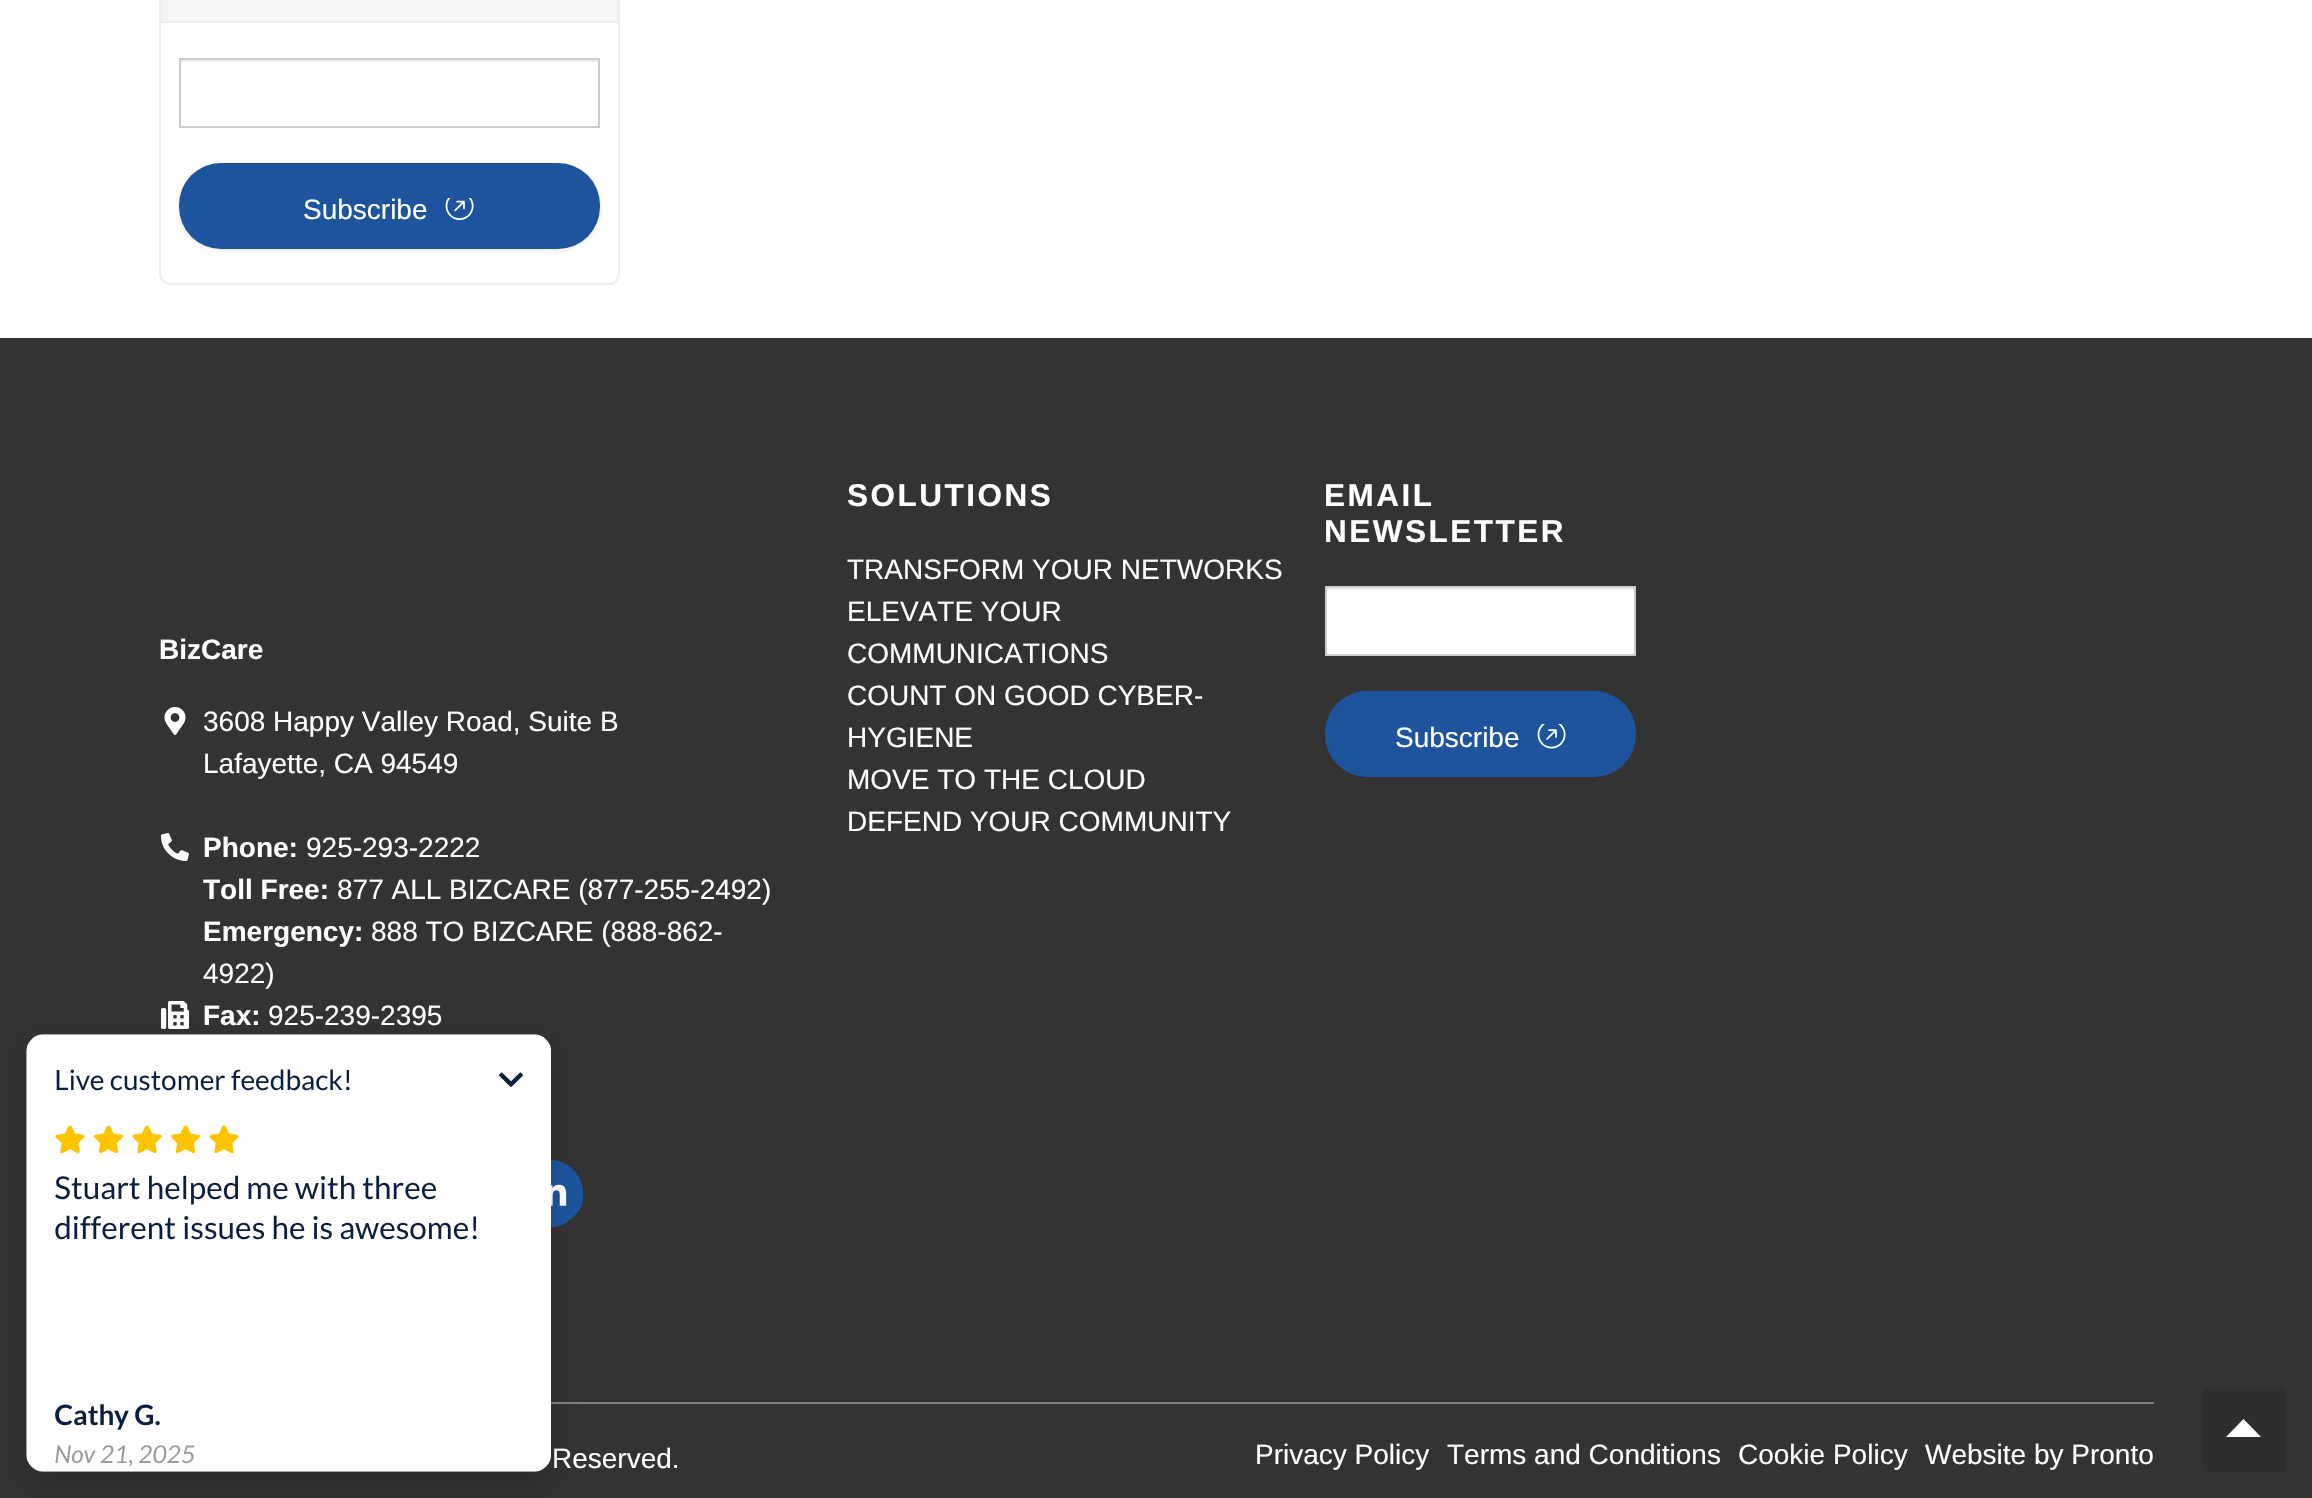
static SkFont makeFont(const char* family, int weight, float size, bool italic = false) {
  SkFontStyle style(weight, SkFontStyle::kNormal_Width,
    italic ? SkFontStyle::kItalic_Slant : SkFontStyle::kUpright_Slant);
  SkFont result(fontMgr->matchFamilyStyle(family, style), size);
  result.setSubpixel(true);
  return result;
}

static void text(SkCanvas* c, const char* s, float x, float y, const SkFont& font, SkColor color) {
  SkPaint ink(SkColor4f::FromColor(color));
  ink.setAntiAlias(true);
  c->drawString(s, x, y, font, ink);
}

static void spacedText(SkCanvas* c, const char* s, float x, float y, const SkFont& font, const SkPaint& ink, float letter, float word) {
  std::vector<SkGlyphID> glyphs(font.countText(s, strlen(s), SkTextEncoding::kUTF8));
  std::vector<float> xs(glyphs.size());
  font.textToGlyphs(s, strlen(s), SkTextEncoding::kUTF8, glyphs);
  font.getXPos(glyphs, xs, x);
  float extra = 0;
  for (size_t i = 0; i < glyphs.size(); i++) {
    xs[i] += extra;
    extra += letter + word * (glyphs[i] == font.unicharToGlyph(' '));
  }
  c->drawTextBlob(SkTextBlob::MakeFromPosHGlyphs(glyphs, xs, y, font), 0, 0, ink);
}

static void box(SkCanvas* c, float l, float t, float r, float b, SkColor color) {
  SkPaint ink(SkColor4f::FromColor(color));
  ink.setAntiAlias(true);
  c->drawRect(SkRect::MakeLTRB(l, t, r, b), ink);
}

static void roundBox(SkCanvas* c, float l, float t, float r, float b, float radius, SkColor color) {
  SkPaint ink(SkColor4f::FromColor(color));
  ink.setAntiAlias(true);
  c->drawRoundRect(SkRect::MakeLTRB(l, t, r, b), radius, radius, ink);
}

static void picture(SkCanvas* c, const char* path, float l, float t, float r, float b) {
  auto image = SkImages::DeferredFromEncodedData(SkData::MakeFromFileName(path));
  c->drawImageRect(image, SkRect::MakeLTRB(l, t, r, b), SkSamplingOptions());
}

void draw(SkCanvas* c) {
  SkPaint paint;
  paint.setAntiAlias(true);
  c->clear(0xffffffff);
  paint.setStyle(SkPaint::kStroke_Style);
  paint.setStrokeWidth(2);
  paint.setColor(0xffeeeeee);
  c->drawRoundRect(SkRect::MakeLTRB(160, -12, 619, 284), 10, 10, paint);
  box(c, 161, 0, 618, 21, 0xfff4f4f4);
  box(c, 161, 21, 618, 23, 0xffeeeeee);
  box(c, 180, 60, 599, 62, 0xffececec);
  paint.setColor(0xffcccccc);
  c->drawRect(SkRect::MakeLTRB(180, 59, 599, 127), paint);
  paint.setStyle(SkPaint::kFill_Style);
  paint.setColor(0x1a000000);
  paint.setMaskFilter(SkMaskFilter::MakeBlur(kNormal_SkBlurStyle, 2));
  c->drawRoundRect(SkRect::MakeLTRB(179, 165, 600, 250), 42, 42, paint);
  paint.setMaskFilter(nullptr);
  roundBox(c, 179, 163, 600, 249, 42, 0xff1d549d);
  SkFont face1 = makeFont("Liberation Sans", 400, 28);
  text(c, "Subscribe", 303, 219, face1, 0xffffffff);
  picture(c, "img_01.png", 445, 198, 474, 220);
  box(c, 0, 338, 2312, 1498, 0xff333333);
  SkFont face2 = makeFont("Liberation Sans", 700, 28);
  text(c, "BizCare", 159, 659, face2, 0xffffffff);
  picture(c, "img_02.png", 164, 707, 186, 735);
  text(c, "3608 Happy Valley Road, Suite B", 203, 731, face1, 0xffffffff);
  text(c, "Lafayette, CA 94549", 203, 773, face1, 0xffffffff);
  picture(c, "img_03.png", 160, 833, 189, 861);
  text(c, "Phone:", 203, 857, face2, 0xffffffff);
  text(c, "925-293-2222", 306, 857, face1, 0xffffffff);
  text(c, "Toll Free:", 203, 899, face2, 0xffffffff);
  text(c, "877 ALL BIZCARE (877-255-2492)", 337, 899, face1, 0xffffffff);
  text(c, "Emergency:", 203, 941, face2, 0xffffffff);
  text(c, "888 TO BIZCARE (888-862-", 371, 941, face1, 0xffffffff);
  text(c, "4922)", 203, 983, face1, 0xffffffff);
  picture(c, "img_04.png", 161, 1001, 189, 1029);
  text(c, "Fax:", 203, 1025, face2, 0xffffffff);
  text(c, "925-239-2395", 268, 1025, face1, 0xffffffff);
  paint.setColor(0xff1c559d);
  c->drawPath(SkPathBuilder().moveTo(526, 1170).cubicTo(548, 1147, 586, 1165, 583, 1197).cubicTo(583, 1205, 579, 1212, 573, 1217).cubicTo(551, 1240, 513, 1222, 516, 1190).cubicTo(516, 1182, 520, 1175, 526, 1170).close().detach(), paint);
  picture(c, "img_05.png", 551, 1184, 567, 1206);
  SkFont face3 = makeFont("Liberation Sans", 700, 31.5f);
  paint.setColor(0xffffffff);
  spacedText(c, "SOLUTIONS", 847, 506, face3, paint, 2.5f, 0);
  text(c, "TRANSFORM YOUR NETWORKS", 847, 579, face1, 0xffffffff);
  text(c, "ELEVATE YOUR", 847, 621, face1, 0xffffffff);
  text(c, "COMMUNICATIONS", 847, 663, face1, 0xffffffff);
  text(c, "COUNT ON GOOD CYBER-", 847, 705, face1, 0xffffffff);
  text(c, "HYGIENE", 847, 747, face1, 0xffffffff);
  text(c, "MOVE TO THE CLOUD", 847, 789, face1, 0xffffffff);
  text(c, "DEFEND YOUR COMMUNITY", 847, 831, face1, 0xffffffff);
  spacedText(c, "EMAIL", 1324, 506, face3, paint, 2.5f, 0);
  spacedText(c, "NEWSLETTER", 1324, 542, face3, paint, 2.5f, 0);
  box(c, 1327, 590, 1634, 654, 0xffffffff);
  box(c, 1327, 588, 1635, 590, 0xffececec);
  paint.setStyle(SkPaint::kStroke_Style);
  paint.setColor(0xffcccccc);
  c->drawRect(SkRect::MakeLTRB(1326, 587, 1635, 655), paint);
  roundBox(c, 1325, 691, 1636, 777, 42, 0xff1d549d);
  text(c, "Subscribe", 1395, 747, face1, 0xffffffff);
  picture(c, "img_06.png", 1537, 724, 1566, 749);
  box(c, 551, 1402, 2154, 1404, 0xff808282);
  text(c, "Reserved.", 552, 1468, face1, 0xffffffff);
  text(c, "Privacy Policy", 1255, 1464, face1, 0xffffffff);
  text(c, "Terms and Conditions", 1447, 1464, face1, 0xffffffff);
  text(c, "Cookie Policy", 1738, 1464, face1, 0xffffffff);
  text(c, "Website by Pronto", 1925, 1464, face1, 0xffffffff);
  paint.setStyle(SkPaint::kFill_Style);
  paint.setColor(0x26000000);
  paint.setMaskFilter(SkMaskFilter::MakeBlur(kNormal_SkBlurStyle, 13));
  c->drawRoundRect(SkRect::MakeLTRB(26, 1043, 551, 1481), 18, 18, paint);
  paint.setMaskFilter(nullptr);
  picture(c, "img_07.png", 26, 1034, 551, 1472);
  roundBox(c, 2203, 1388, 2287, 1472, 5, 0xff2e2e2e);
  paint.setColor(0xffffffff);
  c->drawPath(SkPathBuilder().moveTo(2261, 1437).lineTo(2226, 1437).lineTo(2243.5f, 1419).close().detach(), paint);
}
